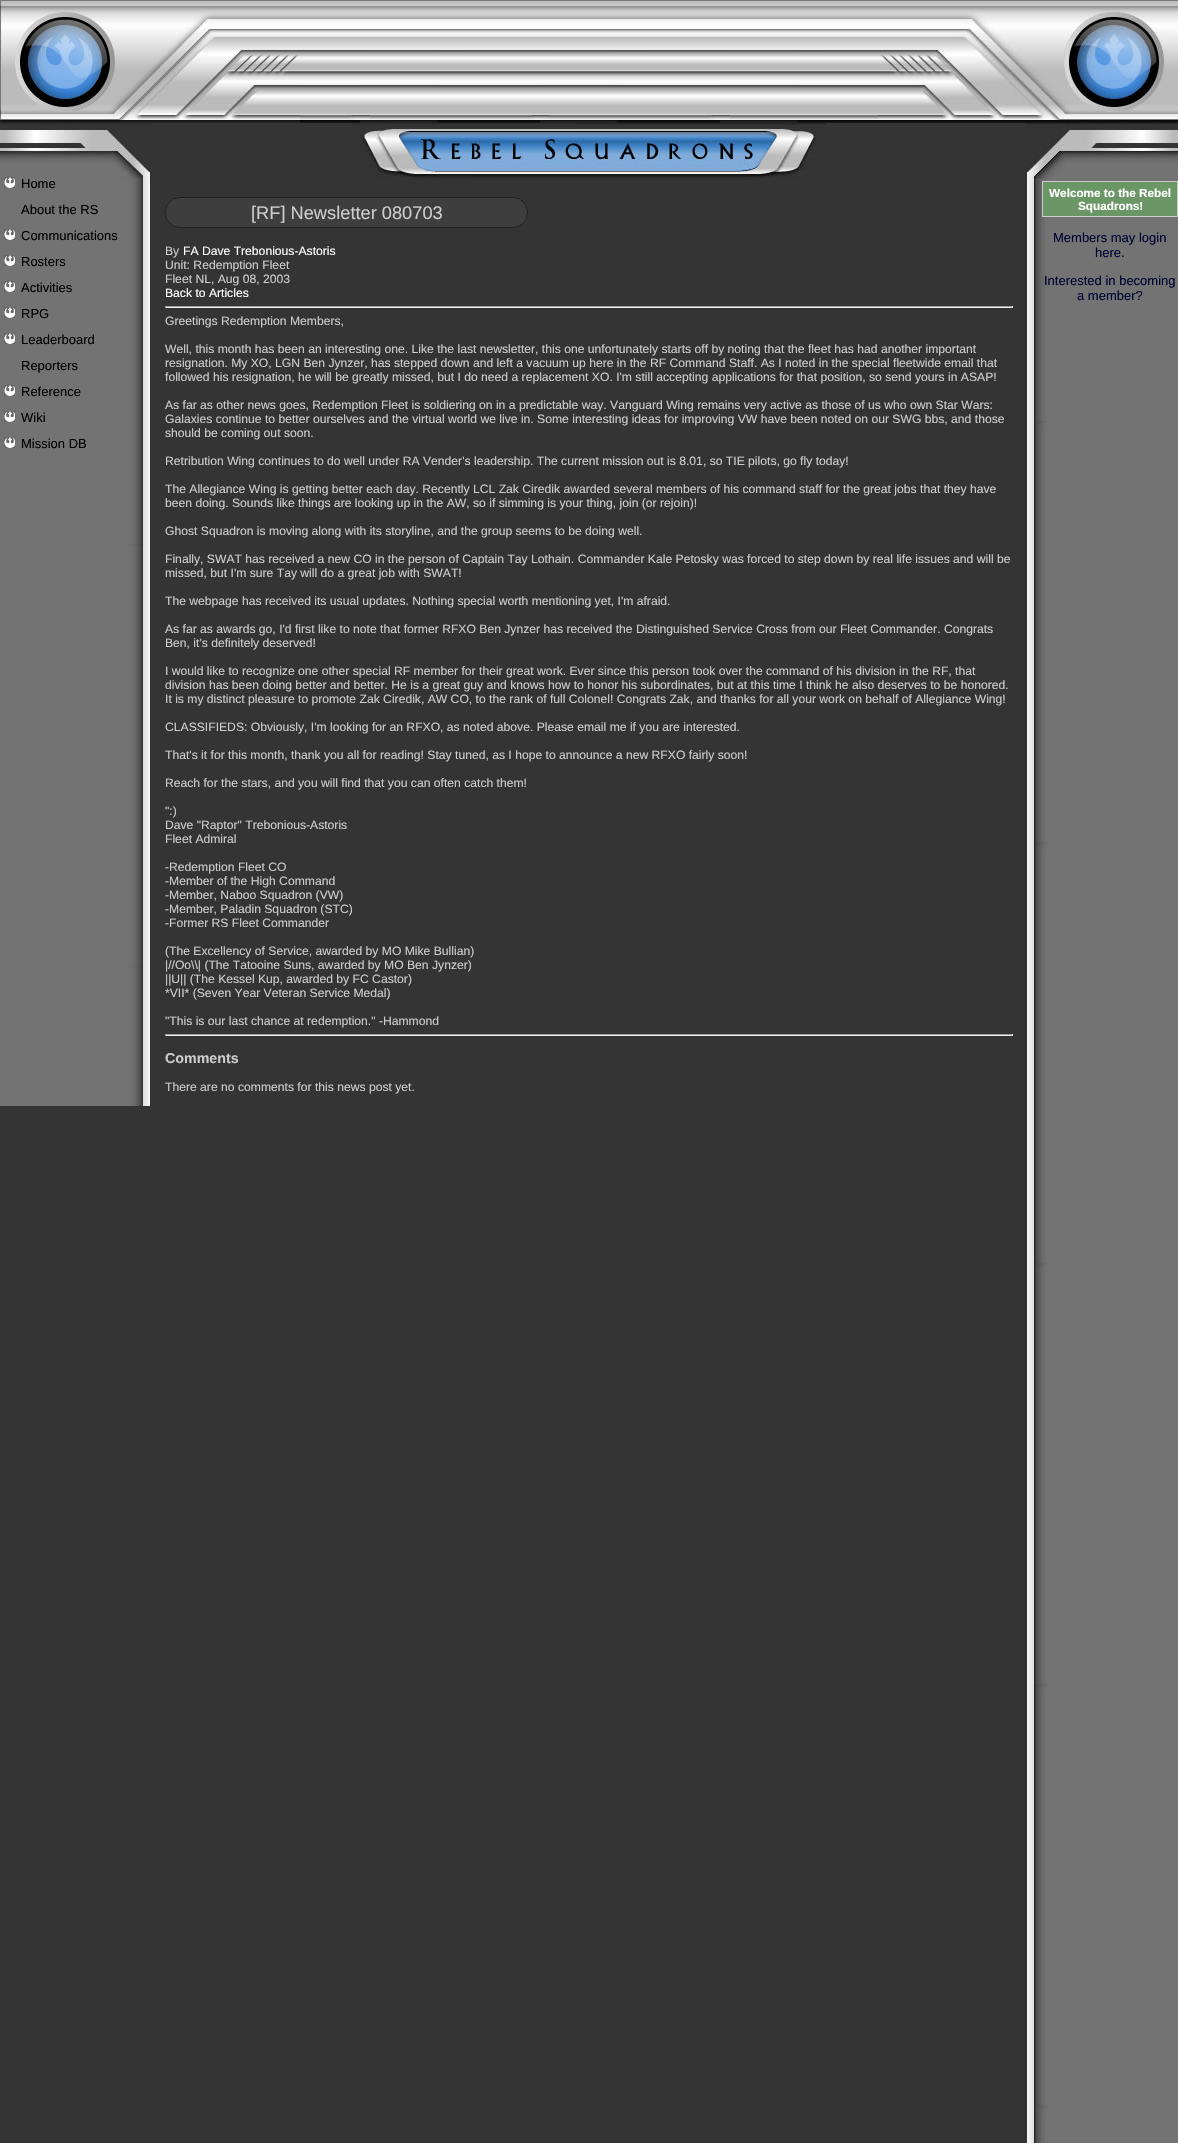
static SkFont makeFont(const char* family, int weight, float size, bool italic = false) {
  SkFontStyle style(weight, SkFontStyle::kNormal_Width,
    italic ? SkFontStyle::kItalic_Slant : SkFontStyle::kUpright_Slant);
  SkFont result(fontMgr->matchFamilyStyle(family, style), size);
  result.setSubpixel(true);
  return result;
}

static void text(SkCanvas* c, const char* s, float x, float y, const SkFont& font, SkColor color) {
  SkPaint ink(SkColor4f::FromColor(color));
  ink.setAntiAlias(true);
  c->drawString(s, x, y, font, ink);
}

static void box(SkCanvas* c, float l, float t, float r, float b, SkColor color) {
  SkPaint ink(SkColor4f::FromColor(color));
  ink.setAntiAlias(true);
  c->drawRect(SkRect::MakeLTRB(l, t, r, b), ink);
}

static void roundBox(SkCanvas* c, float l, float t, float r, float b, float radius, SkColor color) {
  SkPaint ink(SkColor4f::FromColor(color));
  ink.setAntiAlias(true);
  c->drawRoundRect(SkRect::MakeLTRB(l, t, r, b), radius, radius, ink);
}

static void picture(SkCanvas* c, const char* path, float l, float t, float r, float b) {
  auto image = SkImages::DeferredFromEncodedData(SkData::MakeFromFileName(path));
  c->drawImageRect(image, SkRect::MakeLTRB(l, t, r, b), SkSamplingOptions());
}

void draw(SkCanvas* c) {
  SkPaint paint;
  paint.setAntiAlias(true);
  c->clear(0xff343434);
  picture(c, "img_01.png", 1027, 179, 1178, 2143);
  picture(c, "img_02.png", 300, 0, 1178, 123);
  picture(c, "img_03.png", 0, 0, 300, 123);
  picture(c, "img_04.png", 878, 10, 1178, 123);
  picture(c, "img_05.png", 0, 179, 150, 1106);
  picture(c, "img_06.png", 0, 123, 153, 179);
  picture(c, "img_07.png", 1025, 123, 1178, 179);
  box(c, 122, 171, 127, 176, 0xff737373);
  picture(c, "img_08.png", 4, 177, 15, 188);
  SkFont face1 = makeFont("Liberation Sans", 400, 13);
  text(c, "Home", 21, 188, face1, 0xff000000);
  text(c, "About the RS", 21, 214, face1, 0xff000000);
  picture(c, "img_08.png", 4, 229, 15, 240);
  text(c, "Communications", 21, 240, face1, 0xff000000);
  picture(c, "img_08.png", 4, 255, 15, 266);
  text(c, "Rosters", 21, 266, face1, 0xff000000);
  picture(c, "img_08.png", 4, 281, 15, 292);
  text(c, "Activities", 21, 292, face1, 0xff000000);
  picture(c, "img_08.png", 4, 307, 15, 318);
  text(c, "RPG", 21, 318, face1, 0xff000000);
  picture(c, "img_08.png", 4, 333, 15, 344);
  text(c, "Leaderboard", 21, 344, face1, 0xff000000);
  text(c, "Reporters", 21, 370, face1, 0xff000000);
  picture(c, "img_08.png", 4, 385, 15, 396);
  text(c, "Reference", 21, 396, face1, 0xff000000);
  picture(c, "img_08.png", 4, 411, 15, 422);
  text(c, "Wiki", 21, 422, face1, 0xff000000);
  picture(c, "img_08.png", 4, 437, 15, 448);
  text(c, "Mission DB", 21, 448, face1, 0xff000000);
  picture(c, "img_09.png", 352, 123, 826, 179);
  roundBox(c, 165, 197, 528, 228, 15, 0xff3e3e3e);
  paint.setStyle(SkPaint::kStroke_Style);
  paint.setStrokeWidth(1);
  paint.setColor(0x80000000);
  c->drawRoundRect(SkRect::MakeLTRB(165.5f, 197.5f, 527.5f, 227.5f), 14.5f, 14.5f, paint);
  SkFont face2 = makeFont("Liberation Sans", 400, 18.25f);
  text(c, "[RF] Newsletter 080703", 251, 219, face2, 0xffcccccc);
  SkFont face3 = makeFont("Liberation Sans", 400, 12.15f);
  text(c, "By", 165, 255, face3, 0xffcccccc);
  text(c, "FA Dave Trebonious-Astoris", 183, 255, face3, 0xffffffff);
  text(c, "Unit: Redemption Fleet", 165, 269, face3, 0xffcccccc);
  text(c, "Fleet NL, Aug 08, 2003", 165, 283, face3, 0xffcccccc);
  text(c, "Back to Articles", 165, 297, face3, 0xffffffff);
  box(c, 165, 306, 1013, 307, 0xff9f9f9f);
  box(c, 1012, 306, 1013, 308, 0xffeeeeee);
  box(c, 165, 307, 1013, 308, 0xffeeeeee);
  box(c, 165, 306, 166, 308, 0xff9f9f9f);
  text(c, "Greetings Redemption Members,", 165, 325, face3, 0xffcccccc);
  text(c, "Well, this month has been an interesting one. Like the last newsletter, this one unfortunately starts off by noting that the fleet has had another important", 165, 353, face3, 0xffcccccc);
  text(c, "resignation. My XO, LGN Ben Jynzer, has stepped down and left a vacuum up here in the RF Command Staff. As I noted in the special fleetwide email that", 165, 367, face3, 0xffcccccc);
  text(c, "followed his resignation, he will be greatly missed, but I do need a replacement XO. I'm still accepting applications for that position, so send yours in ASAP!", 165, 381, face3, 0xffcccccc);
  text(c, "As far as other news goes, Redemption Fleet is soldiering on in a predictable way. Vanguard Wing remains very active as those of us who own Star Wars:", 165, 409, face3, 0xffcccccc);
  text(c, "Galaxies continue to better ourselves and the virtual world we live in. Some interesting ideas for improving VW have been noted on our SWG bbs, and those", 165, 423, face3, 0xffcccccc);
  text(c, "should be coming out soon.", 165, 437, face3, 0xffcccccc);
  text(c, "Retribution Wing continues to do well under RA Vender's leadership. The current mission out is 8.01, so TIE pilots, go fly today!", 165, 465, face3, 0xffcccccc);
  text(c, "The Allegiance Wing is getting better each day. Recently LCL Zak Ciredik awarded several members of his command staff for the great jobs that they have", 165, 493, face3, 0xffcccccc);
  text(c, "been doing. Sounds like things are looking up in the AW, so if simming is your thing, join (or rejoin)!", 165, 507, face3, 0xffcccccc);
  text(c, "Ghost Squadron is moving along with its storyline, and the group seems to be doing well.", 165, 535, face3, 0xffcccccc);
  text(c, "Finally, SWAT has received a new CO in the person of Captain Tay Lothain. Commander Kale Petosky was forced to step down by real life issues and will be", 165, 563, face3, 0xffcccccc);
  text(c, "missed, but I'm sure Tay will do a great job with SWAT!", 165, 577, face3, 0xffcccccc);
  text(c, "The webpage has received its usual updates. Nothing special worth mentioning yet, I'm afraid.", 165, 605, face3, 0xffcccccc);
  text(c, "As far as awards go, I'd first like to note that former RFXO Ben Jynzer has received the Distinguished Service Cross from our Fleet Commander. Congrats", 165, 633, face3, 0xffcccccc);
  text(c, "Ben, it's definitely deserved!", 165, 647, face3, 0xffcccccc);
  text(c, "I would like to recognize one other special RF member for their great work. Ever since this person took over the command of his division in the RF, that", 165, 675, face3, 0xffcccccc);
  text(c, "division has been doing better and better. He is a great guy and knows how to honor his subordinates, but at this time I think he also deserves to be honored.", 165, 689, face3, 0xffcccccc);
  text(c, "It is my distinct pleasure to promote Zak Ciredik, AW CO, to the rank of full Colonel! Congrats Zak, and thanks for all your work on behalf of Allegiance Wing!", 165, 703, face3, 0xffcccccc);
  text(c, "CLASSIFIEDS: Obviously, I'm looking for an RFXO, as noted above. Please email me if you are interested.", 165, 731, face3, 0xffcccccc);
  text(c, "That's it for this month, thank you all for reading! Stay tuned, as I hope to announce a new RFXO fairly soon!", 165, 759, face3, 0xffcccccc);
  text(c, "Reach for the stars, and you will find that you can often catch them!", 165, 787, face3, 0xffcccccc);
  text(c, "\":)", 165, 815, face3, 0xffcccccc);
  text(c, "Dave \"Raptor\" Trebonious-Astoris", 165, 829, face3, 0xffcccccc);
  text(c, "Fleet Admiral", 165, 843, face3, 0xffcccccc);
  text(c, "-Redemption Fleet CO", 165, 871, face3, 0xffcccccc);
  text(c, "-Member of the High Command", 165, 885, face3, 0xffcccccc);
  text(c, "-Member, Naboo Squadron (VW)", 165, 899, face3, 0xffcccccc);
  text(c, "-Member, Paladin Squadron (STC)", 165, 913, face3, 0xffcccccc);
  text(c, "-Former RS Fleet Commander", 165, 927, face3, 0xffcccccc);
  text(c, "(The Excellency of Service, awarded by MO Mike Bullian)", 165, 955, face3, 0xffcccccc);
  text(c, "|//Oo\\\\| (The Tatooine Suns, awarded by MO Ben Jynzer)", 165, 969, face3, 0xffcccccc);
  text(c, "||U|| (The Kessel Kup, awarded by FC Castor)", 165, 983, face3, 0xffcccccc);
  text(c, "*VII* (Seven Year Veteran Service Medal)", 165, 997, face3, 0xffcccccc);
  text(c, "\"This is our last chance at redemption.\" -Hammond", 165, 1025, face3, 0xffcccccc);
  box(c, 165, 1034, 1013, 1035, 0xff9f9f9f);
  box(c, 1012, 1034, 1013, 1036, 0xffeeeeee);
  box(c, 165, 1035, 1013, 1036, 0xffeeeeee);
  box(c, 165, 1034, 166, 1036, 0xff9f9f9f);
  SkFont face4 = makeFont("Liberation Sans", 700, 14.25f);
  text(c, "Comments", 165, 1063, face4, 0xffcccccc);
  text(c, "There are no comments for this news post yet.", 165, 1091, face3, 0xffcccccc);
  paint.setStyle(SkPaint::kFill_Style);
  paint.setColor(0xff6b9766);
  c->drawRect(SkRect::MakeLTRB(1042.5f, 181.5f, 1177.5f, 216.5f), paint);
  paint.setStyle(SkPaint::kStroke_Style);
  paint.setColor(0xffcccccc);
  c->drawRect(SkRect::MakeLTRB(1042.5f, 181.5f, 1177.5f, 216.5f), paint);
  SkFont face5 = makeFont("Liberation Sans", 700, 11.75f);
  text(c, "Welcome to the Rebel", 1049, 197, face5, 0xffffffff);
  text(c, "Squadrons!", 1078, 210, face5, 0xffffffff);
  text(c, "Members may login", 1053, 242, face1, 0xff000033);
  text(c, "here.", 1095, 257, face1, 0xff000033);
  text(c, "Interested in becoming", 1044, 285, face1, 0xff000033);
  text(c, "a member?", 1077, 300, face1, 0xff000033);
}
